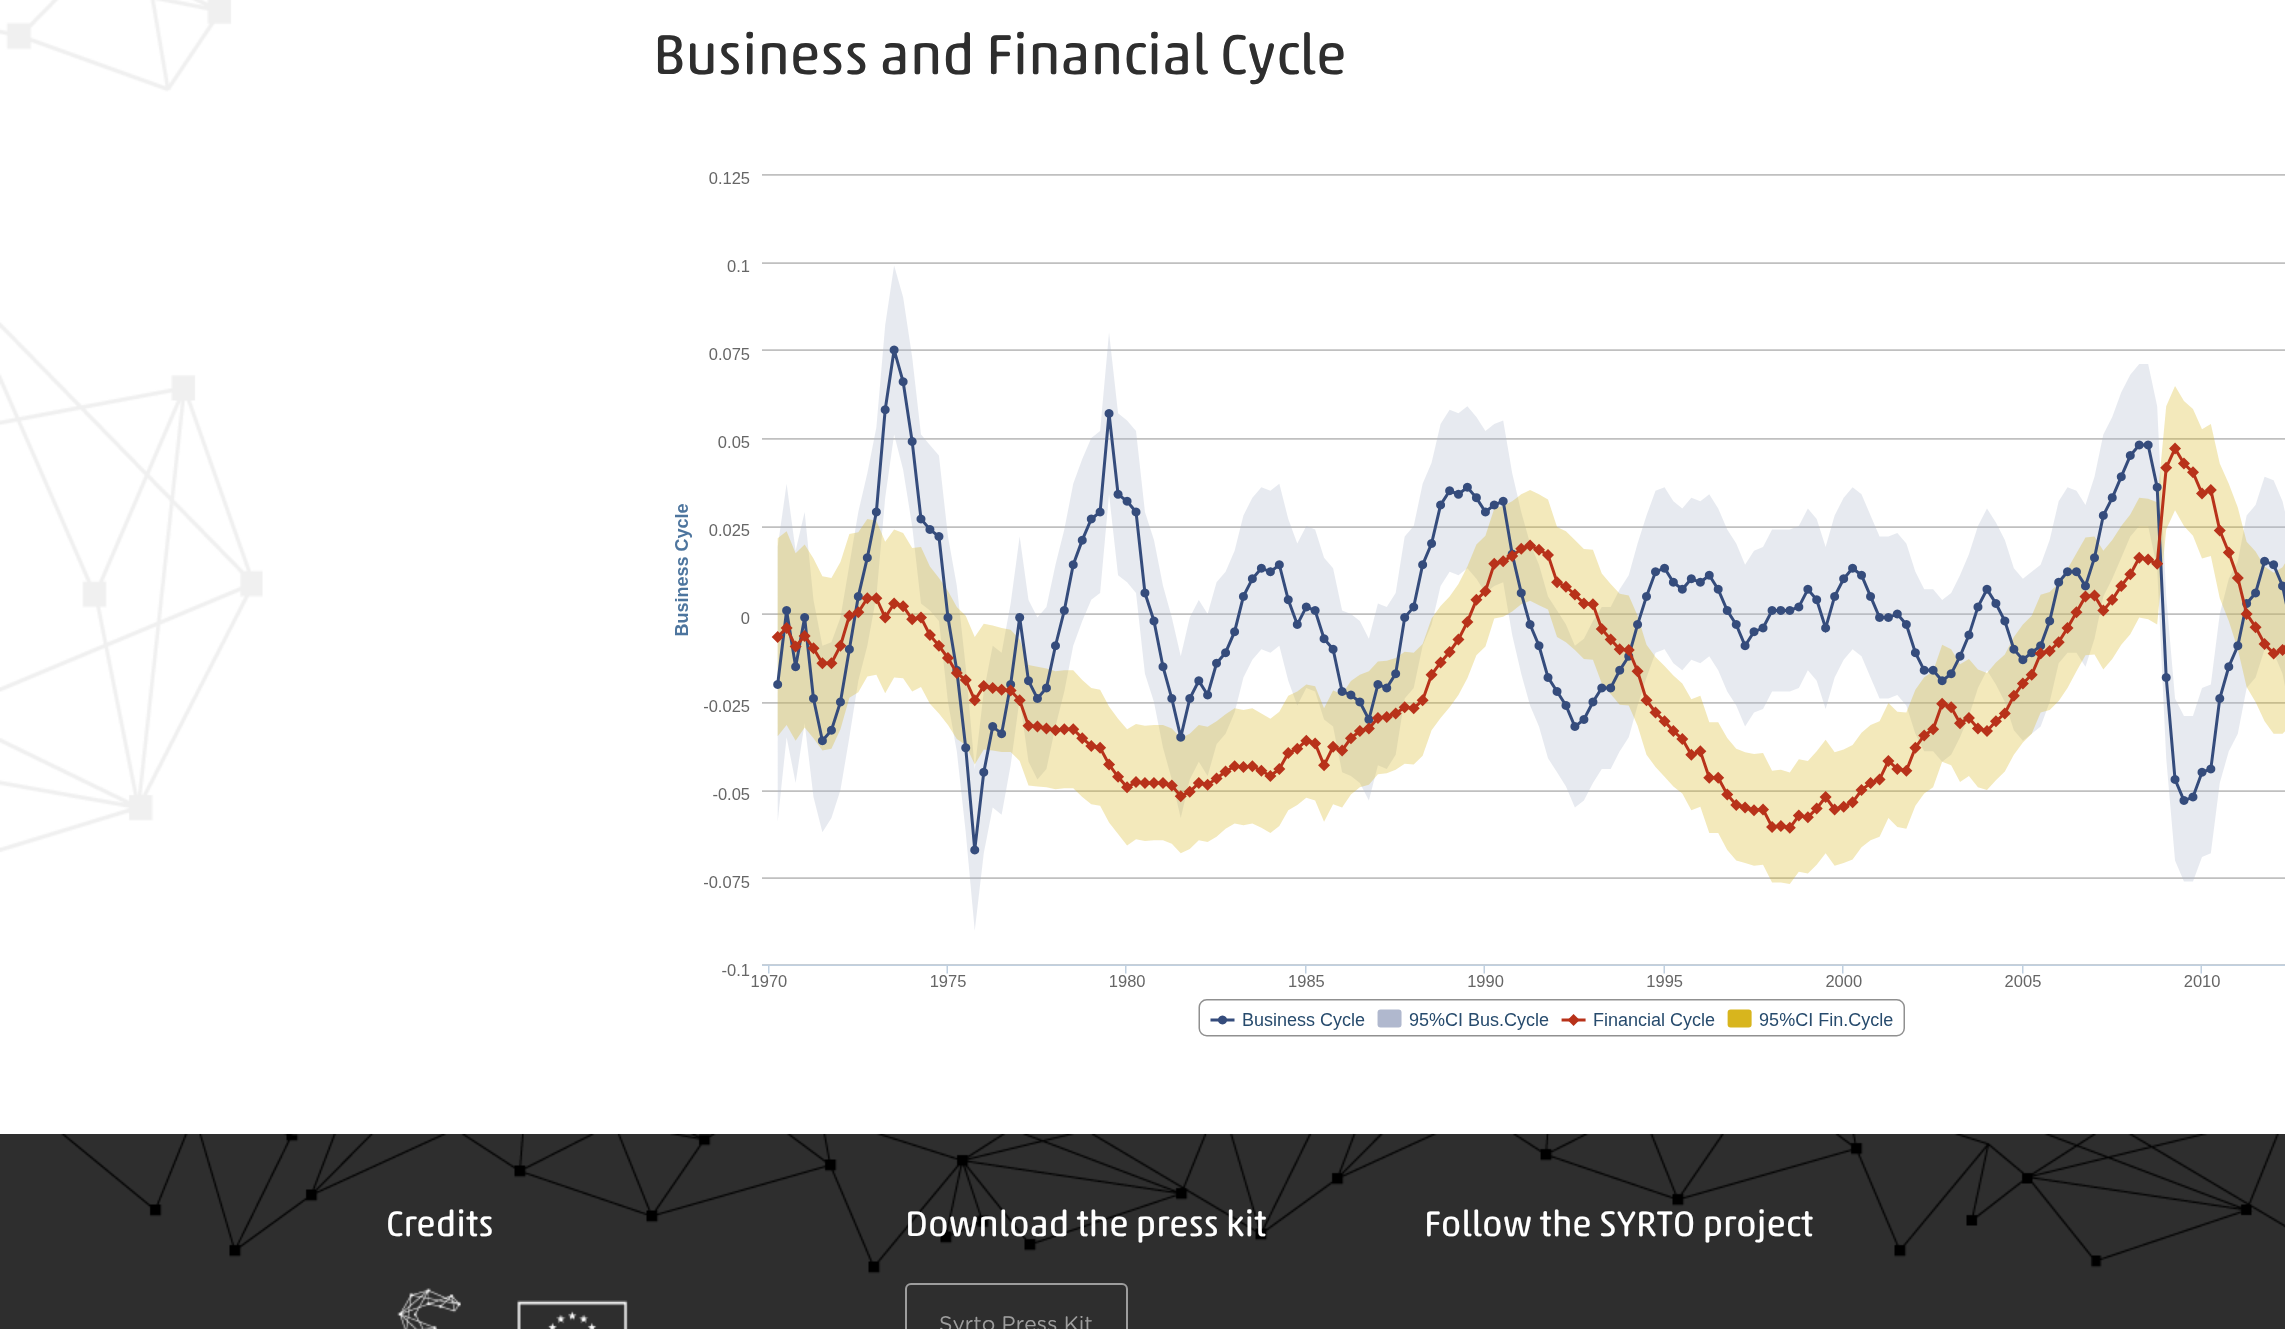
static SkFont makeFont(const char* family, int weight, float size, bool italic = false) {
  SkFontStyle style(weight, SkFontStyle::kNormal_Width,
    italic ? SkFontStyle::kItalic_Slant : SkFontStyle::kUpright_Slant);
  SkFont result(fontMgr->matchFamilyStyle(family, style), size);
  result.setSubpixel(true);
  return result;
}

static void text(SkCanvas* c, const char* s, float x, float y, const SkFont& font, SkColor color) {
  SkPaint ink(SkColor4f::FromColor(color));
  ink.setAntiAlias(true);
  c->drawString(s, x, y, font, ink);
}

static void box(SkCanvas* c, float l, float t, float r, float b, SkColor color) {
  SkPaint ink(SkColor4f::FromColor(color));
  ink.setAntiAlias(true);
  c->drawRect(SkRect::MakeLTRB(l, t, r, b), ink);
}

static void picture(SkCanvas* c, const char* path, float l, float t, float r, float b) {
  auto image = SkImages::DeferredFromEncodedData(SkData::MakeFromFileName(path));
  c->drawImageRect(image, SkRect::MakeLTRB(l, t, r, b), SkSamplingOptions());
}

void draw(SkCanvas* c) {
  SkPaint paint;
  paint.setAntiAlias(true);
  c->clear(0xffffffff);
  picture(c, "img_01.png", 0, 0, 1905, 1037);
  SkFont face1 = makeFont("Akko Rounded", 400, 57);
  text(c, "Business and Financial Cycle", 653, 74, face1, 0xff2e2e2e);
  picture(c, "img_02.png", 704, 172, 2285, 1030);
  box(c, 0, 1134, 2285, 1329, 0xff2e2e2e);
  picture(c, "img_03.png", 61, 1134, 2285, 1274);
  SkFont face2 = makeFont("Akko Rounded", 400, 36);
  text(c, "Credits", 386, 1236, face2, 0xffffffff);
  picture(c, "img_04.png", 397, 1288, 628, 1329);
  text(c, "Download the press kit", 905, 1236, face2, 0xffffffff);
  paint.setStyle(SkPaint::kStroke_Style);
  paint.setStrokeWidth(2);
  paint.setColor(0xff9d9d9d);
  c->drawRoundRect(SkRect::MakeLTRB(906, 1284, 1127, 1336), 5, 5, paint);
  SkFont face3 = makeFont("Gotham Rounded", 400, 21);
  text(c, "Syrto Press Kit", 939, 1331, face3, 0xff9d9d9d);
  text(c, "Follow the SYRTO project", 1424, 1236, face2, 0xffffffff);
}
